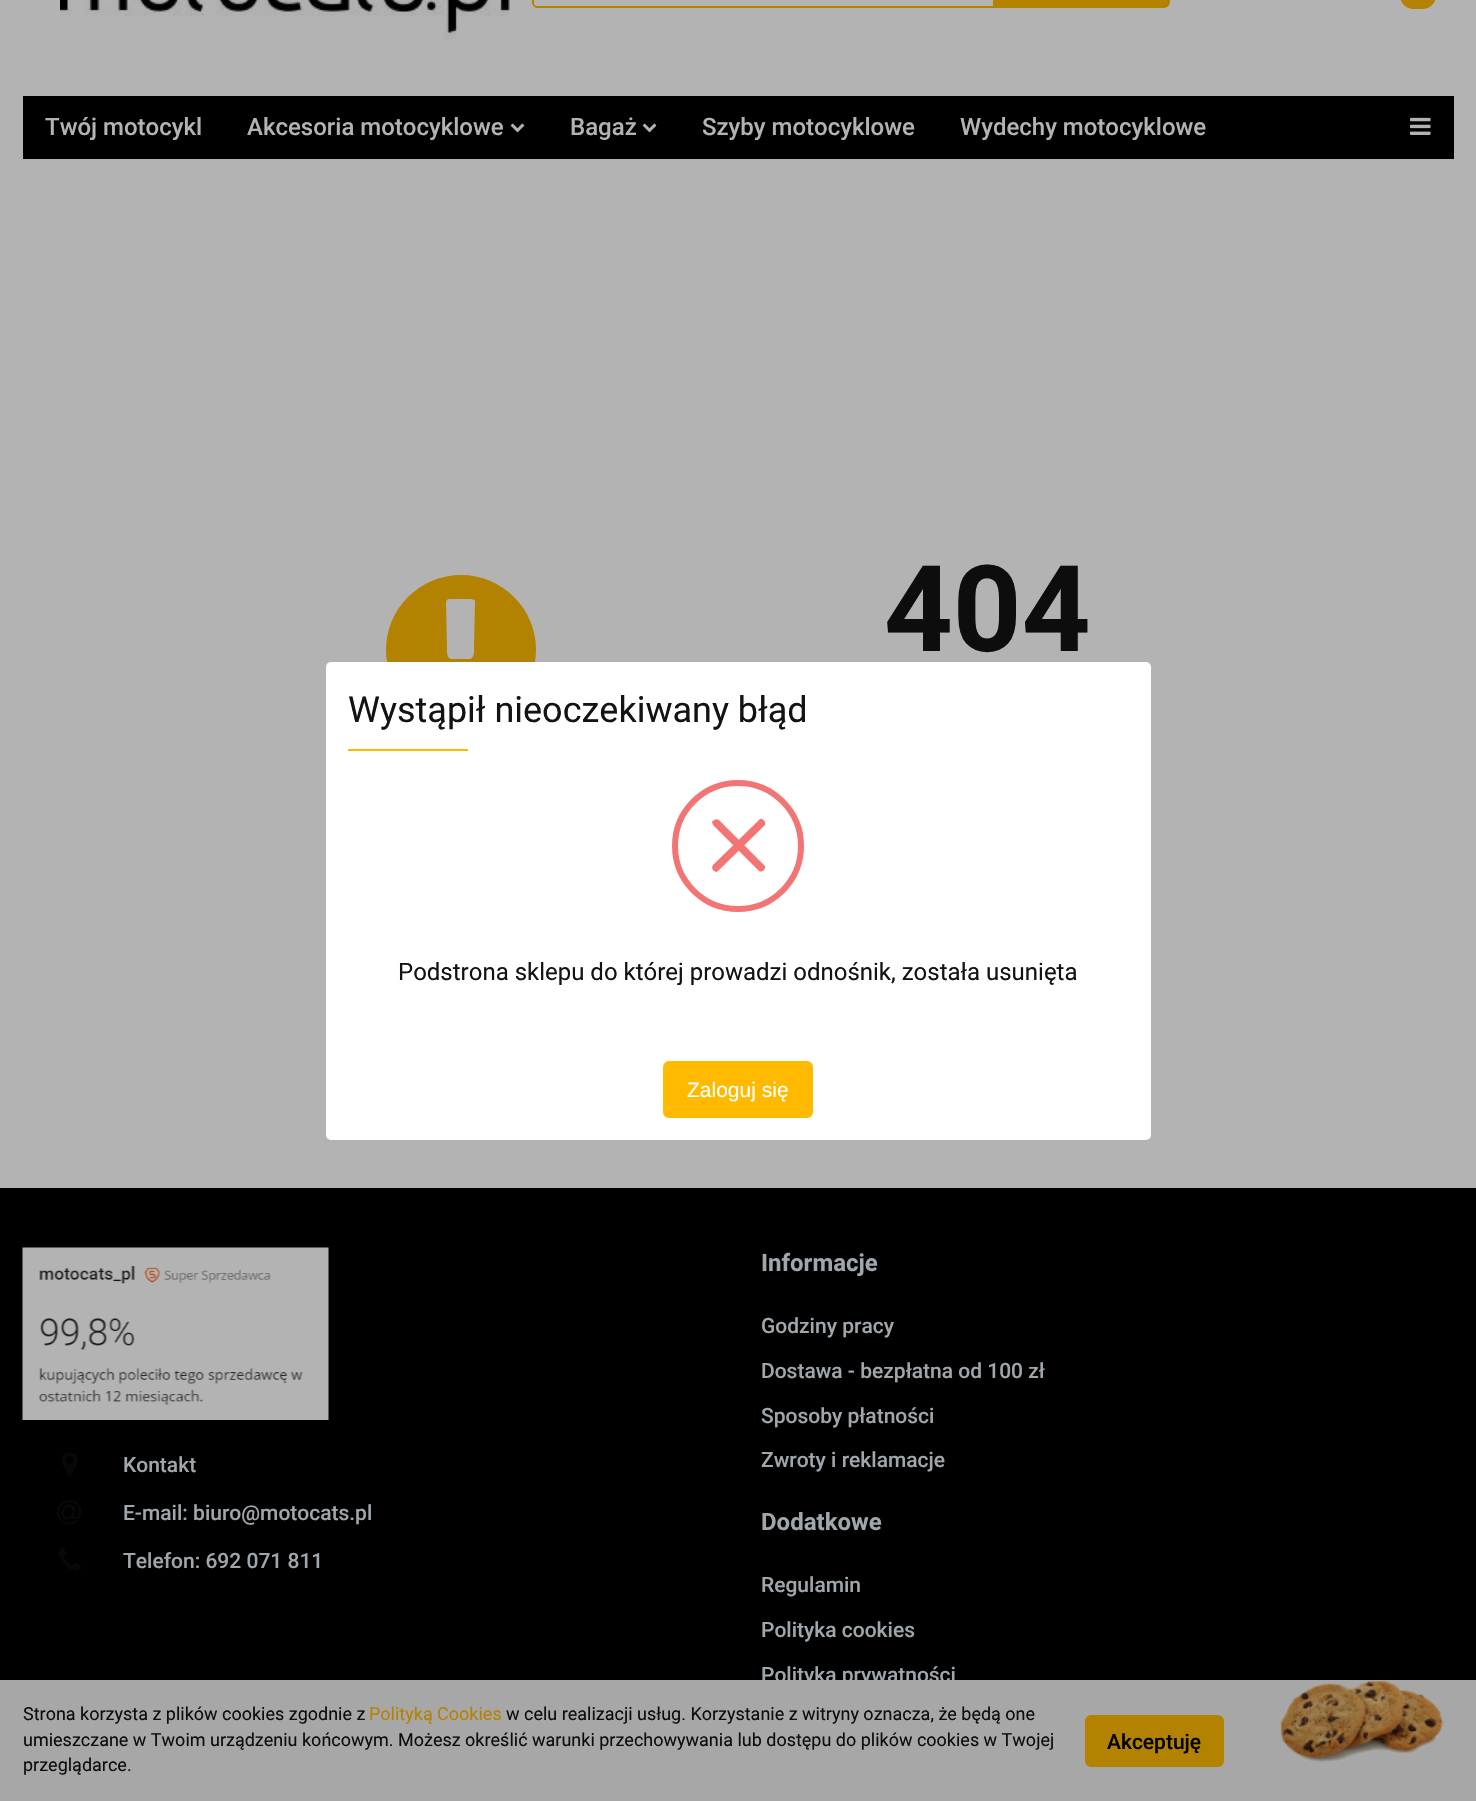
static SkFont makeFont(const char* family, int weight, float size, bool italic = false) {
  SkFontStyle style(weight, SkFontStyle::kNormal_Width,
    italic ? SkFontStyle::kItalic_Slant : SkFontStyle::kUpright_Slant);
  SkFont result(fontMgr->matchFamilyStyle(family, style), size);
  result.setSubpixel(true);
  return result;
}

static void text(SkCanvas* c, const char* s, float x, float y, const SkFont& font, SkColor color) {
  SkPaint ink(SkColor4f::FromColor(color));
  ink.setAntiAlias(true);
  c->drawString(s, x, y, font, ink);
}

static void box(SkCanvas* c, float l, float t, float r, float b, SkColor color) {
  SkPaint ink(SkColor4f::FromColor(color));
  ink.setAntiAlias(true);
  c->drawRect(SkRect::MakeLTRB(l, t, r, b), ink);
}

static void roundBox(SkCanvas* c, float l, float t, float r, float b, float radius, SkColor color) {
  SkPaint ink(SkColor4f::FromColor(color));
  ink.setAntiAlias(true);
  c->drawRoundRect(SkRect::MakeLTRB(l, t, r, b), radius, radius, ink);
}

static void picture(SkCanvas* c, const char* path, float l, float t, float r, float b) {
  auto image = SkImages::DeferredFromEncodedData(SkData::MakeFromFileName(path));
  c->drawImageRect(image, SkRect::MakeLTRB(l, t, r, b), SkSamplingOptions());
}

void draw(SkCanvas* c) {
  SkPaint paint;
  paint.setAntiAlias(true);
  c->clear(0xffb3b3b3);
  picture(c, "img_01.png", 60, 0, 510, 40);
  paint.setColor(0xffb38200);
  c->drawPath(SkPathBuilder(SkPathFillType::kEvenOdd).moveTo(537, -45).lineTo(993, -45).lineTo(993, 8).lineTo(537, 8).cubicTo(535, 8, 532, 5, 532, 3).lineTo(532, -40).cubicTo(532, -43, 535, -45, 537, -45).close().moveTo(537, -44).lineTo(993, -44).lineTo(993, 6).lineTo(537, 6).cubicTo(535, 6, 534, 5, 534, 3).lineTo(534, -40).cubicTo(534, -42, 535, -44, 537, -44).close().detach(), paint);
  c->drawPath(SkPathBuilder().moveTo(995.5f, -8.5f).lineTo(1164, -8.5f).cubicTo(1166, -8.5f, 1167.5f, -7, 1167.5f, -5).lineTo(1167.5f, 2).cubicTo(1167.5f, 4, 1166, 5.5f, 1164, 5.5f).lineTo(995.5f, 5.5f).close().detach(), paint);
  paint.setStyle(SkPaint::kStroke_Style);
  paint.setStrokeWidth(5);
  c->drawPath(SkPathBuilder().moveTo(995.5f, -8.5f).lineTo(1164, -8.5f).cubicTo(1166, -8.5f, 1167.5f, -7, 1167.5f, -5).lineTo(1167.5f, 2).cubicTo(1167.5f, 4, 1166, 5.5f, 1164, 5.5f).lineTo(995.5f, 5.5f).close().detach(), paint);
  roundBox(c, 1400, -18, 1436, 9, 18, 0xffb38200);
  box(c, 23, 96, 1454, 159, 0xff000000);
  SkFont face1 = makeFont("Roboto", 500, 24);
  text(c, "Twój motocykl", 45, 135, face1, 0xffb3b3b3);
  text(c, "Akcesoria motocyklowe", 247, 135, face1, 0xffb3b3b3);
  picture(c, "img_02.png", 510, 123, 525, 133);
  text(c, "Bagaż", 570, 135, face1, 0xffb3b3b3);
  picture(c, "img_02.png", 642, 123, 657, 133);
  text(c, "Szyby motocyklowe", 702, 135, face1, 0xffb3b3b3);
  text(c, "Wydechy motocyklowe", 960, 135, face1, 0xffb3b3b3);
  picture(c, "img_03.png", 1410, 117, 1431, 135);
  paint.setStyle(SkPaint::kFill_Style);
  c->drawCircle(461, 650, 75, paint);
  paint.setColor(0xffb3b3b3);
  c->drawPath(SkPathBuilder().moveTo(473, 674).lineTo(473, 686).cubicTo(473, 695, 468, 693, 460, 693).cubicTo(453, 693, 448, 695, 448, 686).lineTo(448, 674).cubicTo(448, 668, 457, 669, 460, 669).cubicTo(464, 669, 473, 668, 473, 674).close().moveTo(475, 603).lineTo(474, 646).cubicTo(474, 649, 475, 658, 470, 659).lineTo(451, 659).cubicTo(446, 658, 447, 649, 447, 646).lineTo(446, 603).cubicTo(446, 598, 450, 599, 453, 599).lineTo(468, 599).cubicTo(471, 599, 476, 599, 475, 603).close().detach(), paint);
  SkFont face2 = makeFont("Roboto", 700, 120);
  text(c, "404", 884, 651, face2, 0xff0d0d0d);
  box(c, 0, 1188, 1476, 1680, 0xff000000);
  SkFont face3 = makeFont("Roboto", 700, 24);
  text(c, "Informacje", 761, 1271, face3, 0xffa0a7ac);
  SkFont face4 = makeFont("Roboto", 500, 21);
  text(c, "Godziny pracy", 761, 1333, face4, 0xffa0a7ac);
  text(c, "Dostawa - bezpłatna od 100 zł", 761, 1378, face4, 0xffa0a7ac);
  text(c, "Sposoby płatności", 761, 1423, face4, 0xffa0a7ac);
  text(c, "Zwroty i reklamacje", 761, 1467, face4, 0xffa0a7ac);
  picture(c, "img_04.png", 22, 1247, 329, 1420);
  picture(c, "img_05.png", 61, 1452, 78, 1477);
  text(c, "Kontakt", 123, 1472, face4, 0xffa0a7ac);
  picture(c, "img_06.png", 57, 1500, 82, 1525);
  text(c, "E-mail: biuro@motocats.pl", 123, 1520, face4, 0xffa0a7ac);
  picture(c, "img_07.png", 58, 1548, 81, 1571);
  text(c, "Telefon: 692 071 811", 123, 1568, face4, 0xffa0a7ac);
  text(c, "Dodatkowe", 761, 1530, face3, 0xffa0a7ac);
  text(c, "Regulamin", 761, 1592, face4, 0xffa0a7ac);
  text(c, "Polityka cookies", 761, 1637, face4, 0xffa0a7ac);
  text(c, "Polityka prywatności", 761, 1682, face4, 0xffa0a7ac);
  roundBox(c, 326, 662, 1151, 1140, 5, 0xffffffff);
  SkFont face5 = makeFont("Roboto", 400, 36);
  text(c, "Wystąpił nieoczekiwany błąd", 348, 722, face5, 0xff131313);
  box(c, 348, 749, 468, 751, 0xffffba00);
  paint.setStyle(SkPaint::kStroke_Style);
  paint.setStrokeWidth(6);
  paint.setColor(0xfff27474);
  c->drawCircle(738, 846, 63, paint);
  paint.setStyle(SkPaint::kFill_Style);
  c->drawPath(SkPathBuilder().moveTo(719, 820).lineTo(765, 866).cubicTo(766, 869, 762, 873, 759, 871).lineTo(713, 825).lineTo(712, 822).cubicTo(713, 820, 716, 818, 719, 820).close().detach(), paint);
  c->drawPath(SkPathBuilder().moveTo(713, 865).lineTo(760, 819).cubicTo(763, 818, 766, 822, 765, 825).lineTo(718, 871).lineTo(716, 872).cubicTo(713, 871, 711, 868, 713, 865).close().detach(), paint);
  SkFont face6 = makeFont("Roboto", 400, 24);
  text(c, "Podstrona sklepu do której prowadzi odnośnik, została usunięta", 398, 980, face6, 0xff131313);
  roundBox(c, 663, 1061, 813, 1118, 6, 0xffffba00);
  SkFont face7 = makeFont("Liberation Sans", 400, 21);
  text(c, "Zaloguj się", 687, 1097, face7, 0xffffffff);
  box(c, 0, 1680, 1476, 1801, 0xffa7a7a7);
  SkFont face8 = makeFont("Roboto", 400, 18);
  text(c, "Strona korzysta z plików cookies zgodnie z", 23, 1720, face8, 0xff0d0d0d);
  text(c, "Polityką Cookies", 369, 1720, face8, 0xffb38200);
  text(c, "w celu realizacji usług. Korzystanie z witryny oznacza, że będą one", 506, 1720, face8, 0xff0d0d0d);
  text(c, "umieszczane w Twoim urządzeniu końcowym. Możesz określić warunki przechowywania lub dostępu do plików cookies w Twojej", 23, 1746, face8, 0xff0d0d0d);
  text(c, "przeglądarce.", 23, 1771, face8, 0xff0d0d0d);
  paint.setColor(0xffb38200);
  c->drawRoundRect(SkRect::MakeLTRB(1087.5f, 1717.5f, 1221.5f, 1764.5f), 3.5f, 3.5f, paint);
  paint.setStyle(SkPaint::kStroke_Style);
  paint.setStrokeWidth(5);
  c->drawRoundRect(SkRect::MakeLTRB(1087.5f, 1717.5f, 1221.5f, 1764.5f), 3.5f, 3.5f, paint);
  text(c, "Akceptuję", 1107, 1749, face4, 0xff000000);
  picture(c, "img_08.png", 1280, 1680, 1444, 1763);
}
